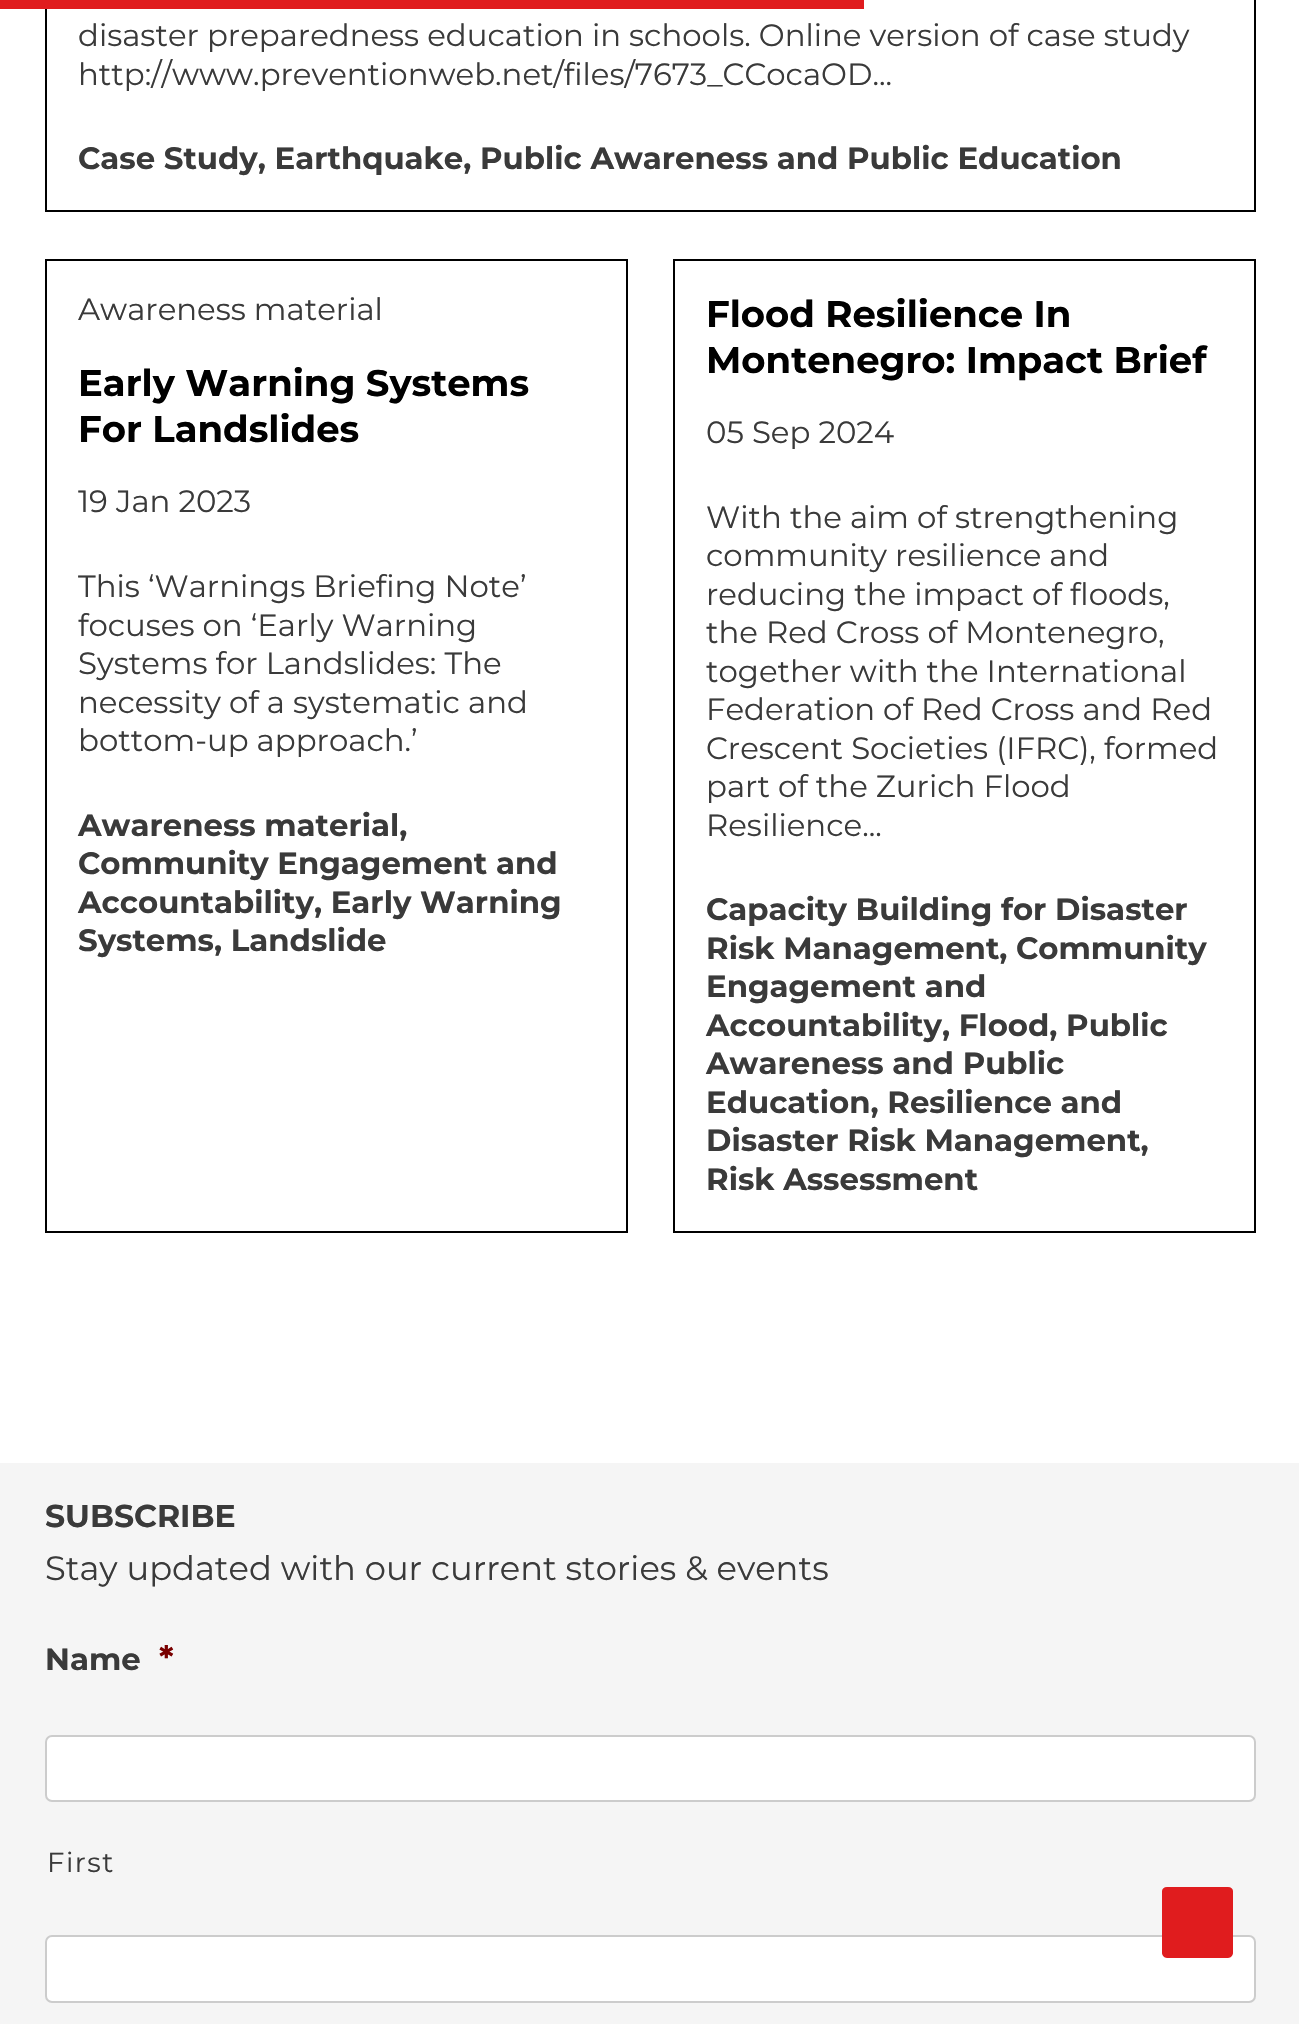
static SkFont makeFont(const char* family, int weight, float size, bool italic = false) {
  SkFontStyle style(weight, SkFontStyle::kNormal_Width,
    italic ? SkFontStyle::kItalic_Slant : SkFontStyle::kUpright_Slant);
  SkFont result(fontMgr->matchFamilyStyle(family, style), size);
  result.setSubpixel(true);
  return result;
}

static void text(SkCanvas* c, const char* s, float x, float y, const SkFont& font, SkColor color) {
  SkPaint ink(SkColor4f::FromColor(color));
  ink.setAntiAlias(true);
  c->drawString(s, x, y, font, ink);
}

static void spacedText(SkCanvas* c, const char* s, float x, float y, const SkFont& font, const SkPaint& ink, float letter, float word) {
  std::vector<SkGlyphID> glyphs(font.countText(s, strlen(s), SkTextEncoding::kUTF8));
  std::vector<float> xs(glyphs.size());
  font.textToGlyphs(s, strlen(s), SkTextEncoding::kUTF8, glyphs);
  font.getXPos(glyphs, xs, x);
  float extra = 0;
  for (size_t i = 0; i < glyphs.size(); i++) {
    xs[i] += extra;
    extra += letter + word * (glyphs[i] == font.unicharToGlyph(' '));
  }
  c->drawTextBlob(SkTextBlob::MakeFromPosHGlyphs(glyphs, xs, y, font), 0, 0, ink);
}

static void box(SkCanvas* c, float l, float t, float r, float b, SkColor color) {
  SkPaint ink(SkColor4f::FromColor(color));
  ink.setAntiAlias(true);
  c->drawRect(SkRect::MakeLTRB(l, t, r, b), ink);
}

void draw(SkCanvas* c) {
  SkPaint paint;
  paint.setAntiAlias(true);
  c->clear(0xffffffff);
  paint.setStyle(SkPaint::kStroke_Style);
  paint.setStrokeWidth(2);
  paint.setColor(0xff000000);
  c->drawRect(SkRect::MakeLTRB(46, -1, 1255, 211), paint);
  box(c, 0, 0, 864, 9, 0xffe01c1e);
  SkFont face1 = makeFont("Montserrat", 400, 30.8f);
  text(c, "disaster preparedness education in schools. Online version of case study", 78, 46, face1, 0xff3a3a3a);
  text(c, "http://www.preventionweb.net/files/7673_CCocaOD...", 78, 85, face1, 0xff3a3a3a);
  SkFont face2 = makeFont("Montserrat", 700, 30.8f);
  text(c, "Case Study, Earthquake, Public Awareness and Public Education", 78, 169, face2, 0xff3a3a3a);
  c->drawRect(SkRect::MakeLTRB(46, 260, 627, 1232), paint);
  text(c, "Awareness material", 78, 320, face1, 0xff3a3a3a);
  SkFont face3 = makeFont("Montserrat", 700, 37);
  text(c, "Early Warning Systems", 78, 396, face3, 0xff000000);
  text(c, "For Landslides", 78, 442, face3, 0xff000000);
  text(c, "19 Jan 2023", 78, 512, face1, 0xff3a3a3a);
  text(c, "This ‘Warnings Briefing Note’", 78, 597, face1, 0xff3a3a3a);
  text(c, "focuses on ‘Early Warning", 78, 636, face1, 0xff3a3a3a);
  text(c, "Systems for Landslides: The", 78, 674, face1, 0xff3a3a3a);
  text(c, "necessity of a systematic and", 78, 713, face1, 0xff3a3a3a);
  text(c, "bottom-up approach.’", 78, 751, face1, 0xff3a3a3a);
  text(c, "Awareness material,", 78, 836, face2, 0xff3a3a3a);
  text(c, "Community Engagement and", 78, 874, face2, 0xff3a3a3a);
  text(c, "Accountability, Early Warning", 78, 913, face2, 0xff3a3a3a);
  text(c, "Systems, Landslide", 78, 951, face2, 0xff3a3a3a);
  c->drawRect(SkRect::MakeLTRB(674, 260, 1255, 1232), paint);
  text(c, "Flood Resilience In", 706, 327, face3, 0xff000000);
  text(c, "Montenegro: Impact Brief", 706, 373, face3, 0xff000000);
  text(c, "05 Sep 2024", 706, 443, face1, 0xff3a3a3a);
  text(c, "With the aim of strengthening", 706, 528, face1, 0xff3a3a3a);
  text(c, "community resilience and", 706, 566, face1, 0xff3a3a3a);
  text(c, "reducing the impact of floods,", 706, 605, face1, 0xff3a3a3a);
  text(c, "the Red Cross of Montenegro,", 706, 643, face1, 0xff3a3a3a);
  text(c, "together with the International", 706, 682, face1, 0xff3a3a3a);
  text(c, "Federation of Red Cross and Red", 706, 720, face1, 0xff3a3a3a);
  text(c, "Crescent Societies (IFRC), formed", 706, 759, face1, 0xff3a3a3a);
  text(c, "part of the Zurich Flood", 706, 797, face1, 0xff3a3a3a);
  text(c, "Resilience...", 706, 836, face1, 0xff3a3a3a);
  text(c, "Capacity Building for Disaster", 706, 920, face2, 0xff3a3a3a);
  text(c, "Risk Management, Community", 706, 959, face2, 0xff3a3a3a);
  text(c, "Engagement and", 706, 997, face2, 0xff3a3a3a);
  text(c, "Accountability, Flood, Public", 706, 1036, face2, 0xff3a3a3a);
  text(c, "Awareness and Public", 706, 1074, face2, 0xff3a3a3a);
  text(c, "Education, Resilience and", 706, 1113, face2, 0xff3a3a3a);
  text(c, "Disaster Risk Management,", 706, 1151, face2, 0xff3a3a3a);
  text(c, "Risk Assessment", 706, 1190, face2, 0xff3a3a3a);
  box(c, 0, 1463, 1299, 2024, 0xfff5f5f5);
  SkFont face4 = makeFont("Montserrat", 700, 31.5f);
  text(c, "SUBSCRIBE", 45, 1527, face4, 0xff3a3a3a);
  SkFont face5 = makeFont("Montserrat", 400, 33.75f);
  text(c, "Stay updated with our current stories & events", 45, 1580, face5, 0xff3a3a3a);
  text(c, "Name", 45, 1670, face2, 0xff3a3a3a);
  SkFont face6 = makeFont("Montserrat", 700, 33.75f);
  text(c, "*", 159, 1670, face6, 0xff790000);
  paint.setStyle(SkPaint::kFill_Style);
  paint.setColor(0xffffffff);
  c->drawRoundRect(SkRect::MakeLTRB(46, 1736, 1255, 1801), 6, 6, paint);
  paint.setStyle(SkPaint::kStroke_Style);
  paint.setColor(0xffcccccc);
  c->drawRoundRect(SkRect::MakeLTRB(46, 1736, 1255, 1801), 6, 6, paint);
  SkFont face7 = makeFont("Montserrat", 400, 27.5f);
  paint.setStyle(SkPaint::kFill_Style);
  paint.setColor(0xff3a3a3a);
  spacedText(c, "First", 47, 1872, face7, paint, 1.5f, 0);
  paint.setColor(0xffffffff);
  c->drawRoundRect(SkRect::MakeLTRB(46, 1936, 1255, 2002), 6, 6, paint);
  paint.setStyle(SkPaint::kStroke_Style);
  paint.setColor(0xffcccccc);
  c->drawRoundRect(SkRect::MakeLTRB(46, 1936, 1255, 2002), 6, 6, paint);
  paint.setStyle(SkPaint::kFill_Style);
  paint.setColor(0xffe01c1e);
  c->drawPath(SkPathBuilder().moveTo(1228, 1958).lineTo(1167, 1958).cubicTo(1164, 1958, 1162, 1955, 1162, 1953).lineTo(1162, 1891).cubicTo(1162, 1889, 1164, 1887, 1167, 1887).lineTo(1228, 1887).cubicTo(1231, 1887, 1233, 1889, 1233, 1891).lineTo(1233, 1953).cubicTo(1233, 1955, 1231, 1958, 1228, 1958).close().detach(), paint);
}
